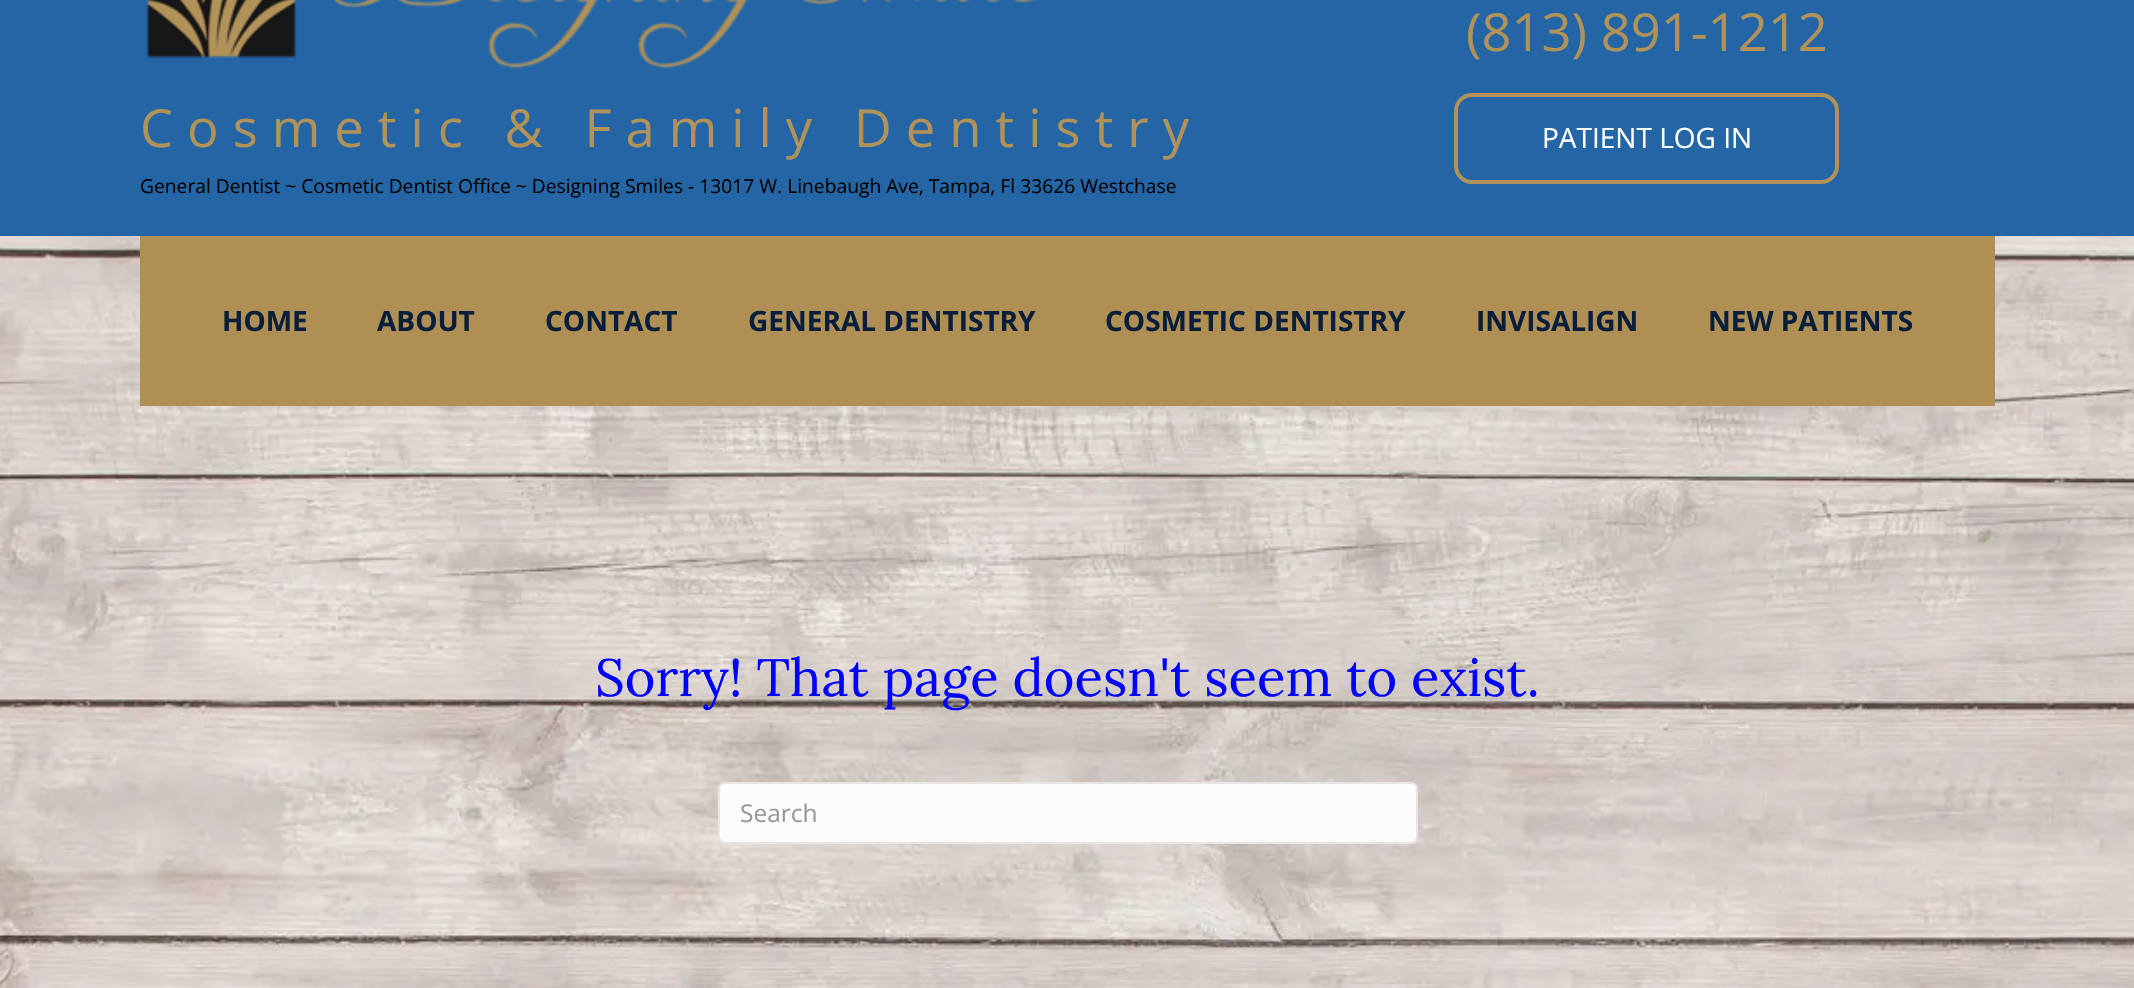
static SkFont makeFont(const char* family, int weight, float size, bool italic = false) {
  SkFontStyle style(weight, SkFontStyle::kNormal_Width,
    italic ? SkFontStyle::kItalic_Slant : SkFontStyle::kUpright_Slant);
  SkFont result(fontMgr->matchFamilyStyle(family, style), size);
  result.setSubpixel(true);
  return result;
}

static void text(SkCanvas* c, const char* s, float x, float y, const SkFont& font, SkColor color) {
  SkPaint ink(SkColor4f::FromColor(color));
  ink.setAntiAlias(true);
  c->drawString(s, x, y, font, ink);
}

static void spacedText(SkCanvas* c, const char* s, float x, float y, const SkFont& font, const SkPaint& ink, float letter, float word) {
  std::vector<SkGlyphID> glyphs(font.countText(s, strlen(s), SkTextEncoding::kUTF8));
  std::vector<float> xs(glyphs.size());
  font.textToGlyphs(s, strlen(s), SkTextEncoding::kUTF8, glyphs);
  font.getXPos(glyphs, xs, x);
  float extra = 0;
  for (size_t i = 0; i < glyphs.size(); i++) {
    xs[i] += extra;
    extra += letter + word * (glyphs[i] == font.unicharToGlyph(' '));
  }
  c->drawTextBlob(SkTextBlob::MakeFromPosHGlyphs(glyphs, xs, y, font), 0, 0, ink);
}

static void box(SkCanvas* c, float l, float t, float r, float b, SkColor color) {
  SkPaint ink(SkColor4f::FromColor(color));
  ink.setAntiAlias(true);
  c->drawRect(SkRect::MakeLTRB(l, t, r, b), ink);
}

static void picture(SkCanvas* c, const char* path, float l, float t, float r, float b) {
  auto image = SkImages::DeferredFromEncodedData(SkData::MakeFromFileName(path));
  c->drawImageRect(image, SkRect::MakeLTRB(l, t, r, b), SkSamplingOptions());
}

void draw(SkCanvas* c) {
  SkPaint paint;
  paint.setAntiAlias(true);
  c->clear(0xffffffff);
  picture(c, "img_01.png", 0, 236, 2134, 988);
  box(c, 0, 0, 2134, 236, 0xff2465a5);
  picture(c, "img_02.png", 146, 0, 1036, 69);
  SkFont face1 = makeFont("Open Sans", 400, 52.5f);
  paint.setColor(0xffb19259);
  spacedText(c, "Cosmetic & Family Dentistry", 140, 147, face1, paint, 14, 0);
  SkFont face2 = makeFont("Open Sans", 400, 19.25f);
  text(c, "General Dentist ~ Cosmetic Dentist Office ~ Designing Smiles - 13017 W. Linebaugh Ave, Tampa, Fl 33626 Westchase", 140, 193, face2, 0xff000000);
  text(c, "(813) 891-1212", 1466, 51, face1, 0xffb19259);
  paint.setStyle(SkPaint::kStroke_Style);
  paint.setStrokeWidth(4);
  c->drawRoundRect(SkRect::MakeLTRB(1456, 95, 1837, 182), 16, 16, paint);
  SkFont face3 = makeFont("Open Sans", 400, 28);
  text(c, "PATIENT LOG IN", 1542, 148, face3, 0xffffffff);
  box(c, 140, 236, 1995, 406, 0xffaf8f54);
  SkFont face4 = makeFont("Open Sans", 700, 28);
  text(c, "HOME", 222, 331, face4, 0xff081e3b);
  text(c, "ABOUT", 377, 331, face4, 0xff081e3b);
  text(c, "CONTACT", 545, 331, face4, 0xff081e3b);
  text(c, "GENERAL DENTISTRY", 748, 331, face4, 0xff081e3b);
  text(c, "COSMETIC DENTISTRY", 1105, 331, face4, 0xff081e3b);
  text(c, "INVISALIGN", 1476, 331, face4, 0xff081e3b);
  text(c, "NEW PATIENTS", 1708, 331, face4, 0xff081e3b);
  SkFont face5 = makeFont("Lora", 400, 52.5f);
  text(c, "Sorry! That page doesn't seem to exist.", 595, 696, face5, 0xff0000ff);
  paint.setStyle(SkPaint::kFill_Style);
  paint.setColor(0xfffcfcfc);
  c->drawRoundRect(SkRect::MakeLTRB(719, 783, 1417, 843), 6, 6, paint);
  paint.setStyle(SkPaint::kStroke_Style);
  paint.setStrokeWidth(2);
  paint.setColor(0xffe6e6e6);
  c->drawRoundRect(SkRect::MakeLTRB(719, 783, 1417, 843), 6, 6, paint);
  SkFont face6 = makeFont("Open Sans", 400, 24.5f);
  text(c, "Search", 740, 822, face6, 0xff979797);
}
